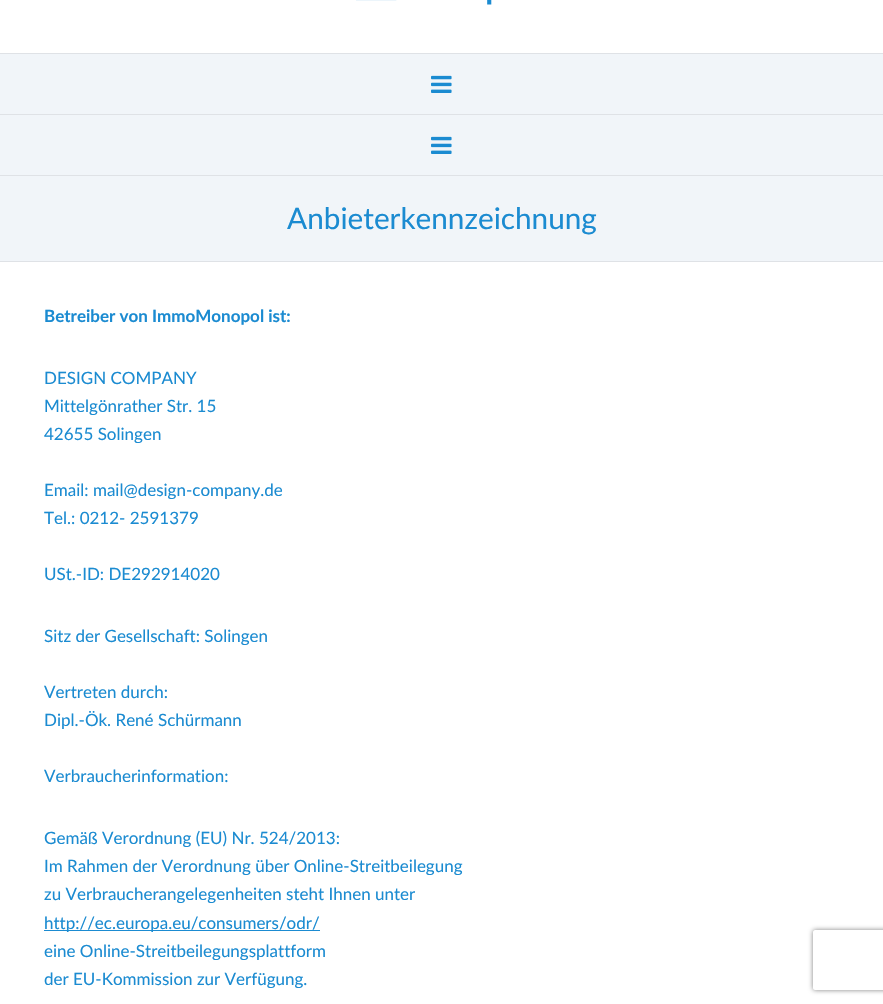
static SkFont makeFont(const char* family, int weight, float size, bool italic = false) {
  SkFontStyle style(weight, SkFontStyle::kNormal_Width,
    italic ? SkFontStyle::kItalic_Slant : SkFontStyle::kUpright_Slant);
  SkFont result(fontMgr->matchFamilyStyle(family, style), size);
  result.setSubpixel(true);
  return result;
}

static void text(SkCanvas* c, const char* s, float x, float y, const SkFont& font, SkColor color) {
  SkPaint ink(SkColor4f::FromColor(color));
  ink.setAntiAlias(true);
  c->drawString(s, x, y, font, ink);
}

static void box(SkCanvas* c, float l, float t, float r, float b, SkColor color) {
  SkPaint ink(SkColor4f::FromColor(color));
  ink.setAntiAlias(true);
  c->drawRect(SkRect::MakeLTRB(l, t, r, b), ink);
}

static void picture(SkCanvas* c, const char* path, float l, float t, float r, float b) {
  auto image = SkImages::DeferredFromEncodedData(SkData::MakeFromFileName(path));
  c->drawImageRect(image, SkRect::MakeLTRB(l, t, r, b), SkSamplingOptions());
}

void draw(SkCanvas* c) {
  SkPaint paint;
  paint.setAntiAlias(true);
  c->clear(0xffffffff);
  picture(c, "img_01.png", 356, 0, 492, 5);
  box(c, 0, 54, 883, 114, 0xfff1f5f9);
  box(c, 0, 53, 883, 54, 0xffdfe2e6);
  picture(c, "img_02.png", 431, 75, 452, 93);
  box(c, 0, 114, 883, 115, 0xffdfe2e6);
  box(c, 0, 175, 883, 176, 0xffdfe2e6);
  box(c, 0, 115, 883, 175, 0xfff1f5f9);
  picture(c, "img_02.png", 431, 136, 452, 154);
  box(c, 0, 176, 883, 261, 0xfff1f5f9);
  box(c, 0, 261, 883, 262, 0xffdfe2e6);
  SkFont face1 = makeFont("Lato", 400, 29.75f);
  text(c, "Anbieterkennzeichnung", 287, 229, face1, 0xff1b8bd1);
  SkFont face2 = makeFont("Lato", 700, 17);
  text(c, "Betreiber von ImmoMonopol ist:", 44, 322, face2, 0xff1b8bd1);
  SkFont face3 = makeFont("Lato", 400, 17);
  text(c, "DESIGN COMPANY", 44, 384, face3, 0xff1b8bd1);
  text(c, "Mittelgönrather Str. 15", 44, 412, face3, 0xff1b8bd1);
  text(c, "42655 Solingen", 44, 440, face3, 0xff1b8bd1);
  text(c, "Email: mail@design-company.de", 44, 496, face3, 0xff1b8bd1);
  text(c, "Tel.: 0212- 2591379", 44, 524, face3, 0xff1b8bd1);
  text(c, "USt.-ID: DE292914020", 44, 580, face3, 0xff1b8bd1);
  text(c, "Sitz der Gesellschaft: Solingen", 44, 642, face3, 0xff1b8bd1);
  text(c, "Vertreten durch:", 44, 698, face3, 0xff1b8bd1);
  text(c, "Dipl.-Ök. René Schürmann", 44, 726, face3, 0xff1b8bd1);
  text(c, "Verbraucherinformation:", 44, 782, face3, 0xff1b8bd1);
  text(c, "Gemäß Verordnung (EU) Nr. 524/2013:", 44, 844, face3, 0xff1b8bd1);
  text(c, "Im Rahmen der Verordnung über Online-Streitbeilegung", 44, 872, face3, 0xff1b8bd1);
  text(c, "zu Verbraucherangelegenheiten steht Ihnen unter", 44, 900, face3, 0xff1b8bd1);
  box(c, 44, 930, 320, 931, 0xff1b8bd1);
  text(c, "http://ec.europa.eu/consumers/odr/", 44, 929, face3, 0xff1b8bd1);
  text(c, "eine Online-Streitbeilegungsplattform", 44, 957, face3, 0xff1b8bd1);
  text(c, "der EU-Kommission zur Verfügung.", 44, 985, face3, 0xff1b8bd1);
  c->save();
  c->clipPath(SkPathBuilder(SkPathFillType::kEvenOdd).moveTo(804, 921).lineTo(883, 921).lineTo(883, 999).lineTo(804, 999).close().moveTo(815, 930).lineTo(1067, 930).cubicTo(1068, 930, 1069, 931, 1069, 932).lineTo(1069, 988).cubicTo(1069, 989, 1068, 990, 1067, 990).lineTo(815, 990).cubicTo(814, 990, 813, 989, 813, 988).lineTo(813, 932).cubicTo(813, 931, 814, 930, 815, 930).close().detach(), true);
  paint.setColor(0xff808080);
  paint.setMaskFilter(SkMaskFilter::MakeBlur(kNormal_SkBlurStyle, 2.5f));
  c->drawRoundRect(SkRect::MakeLTRB(813, 930, 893, 990), 2, 2, paint);
  paint.setMaskFilter(nullptr);
  c->restore();
}
